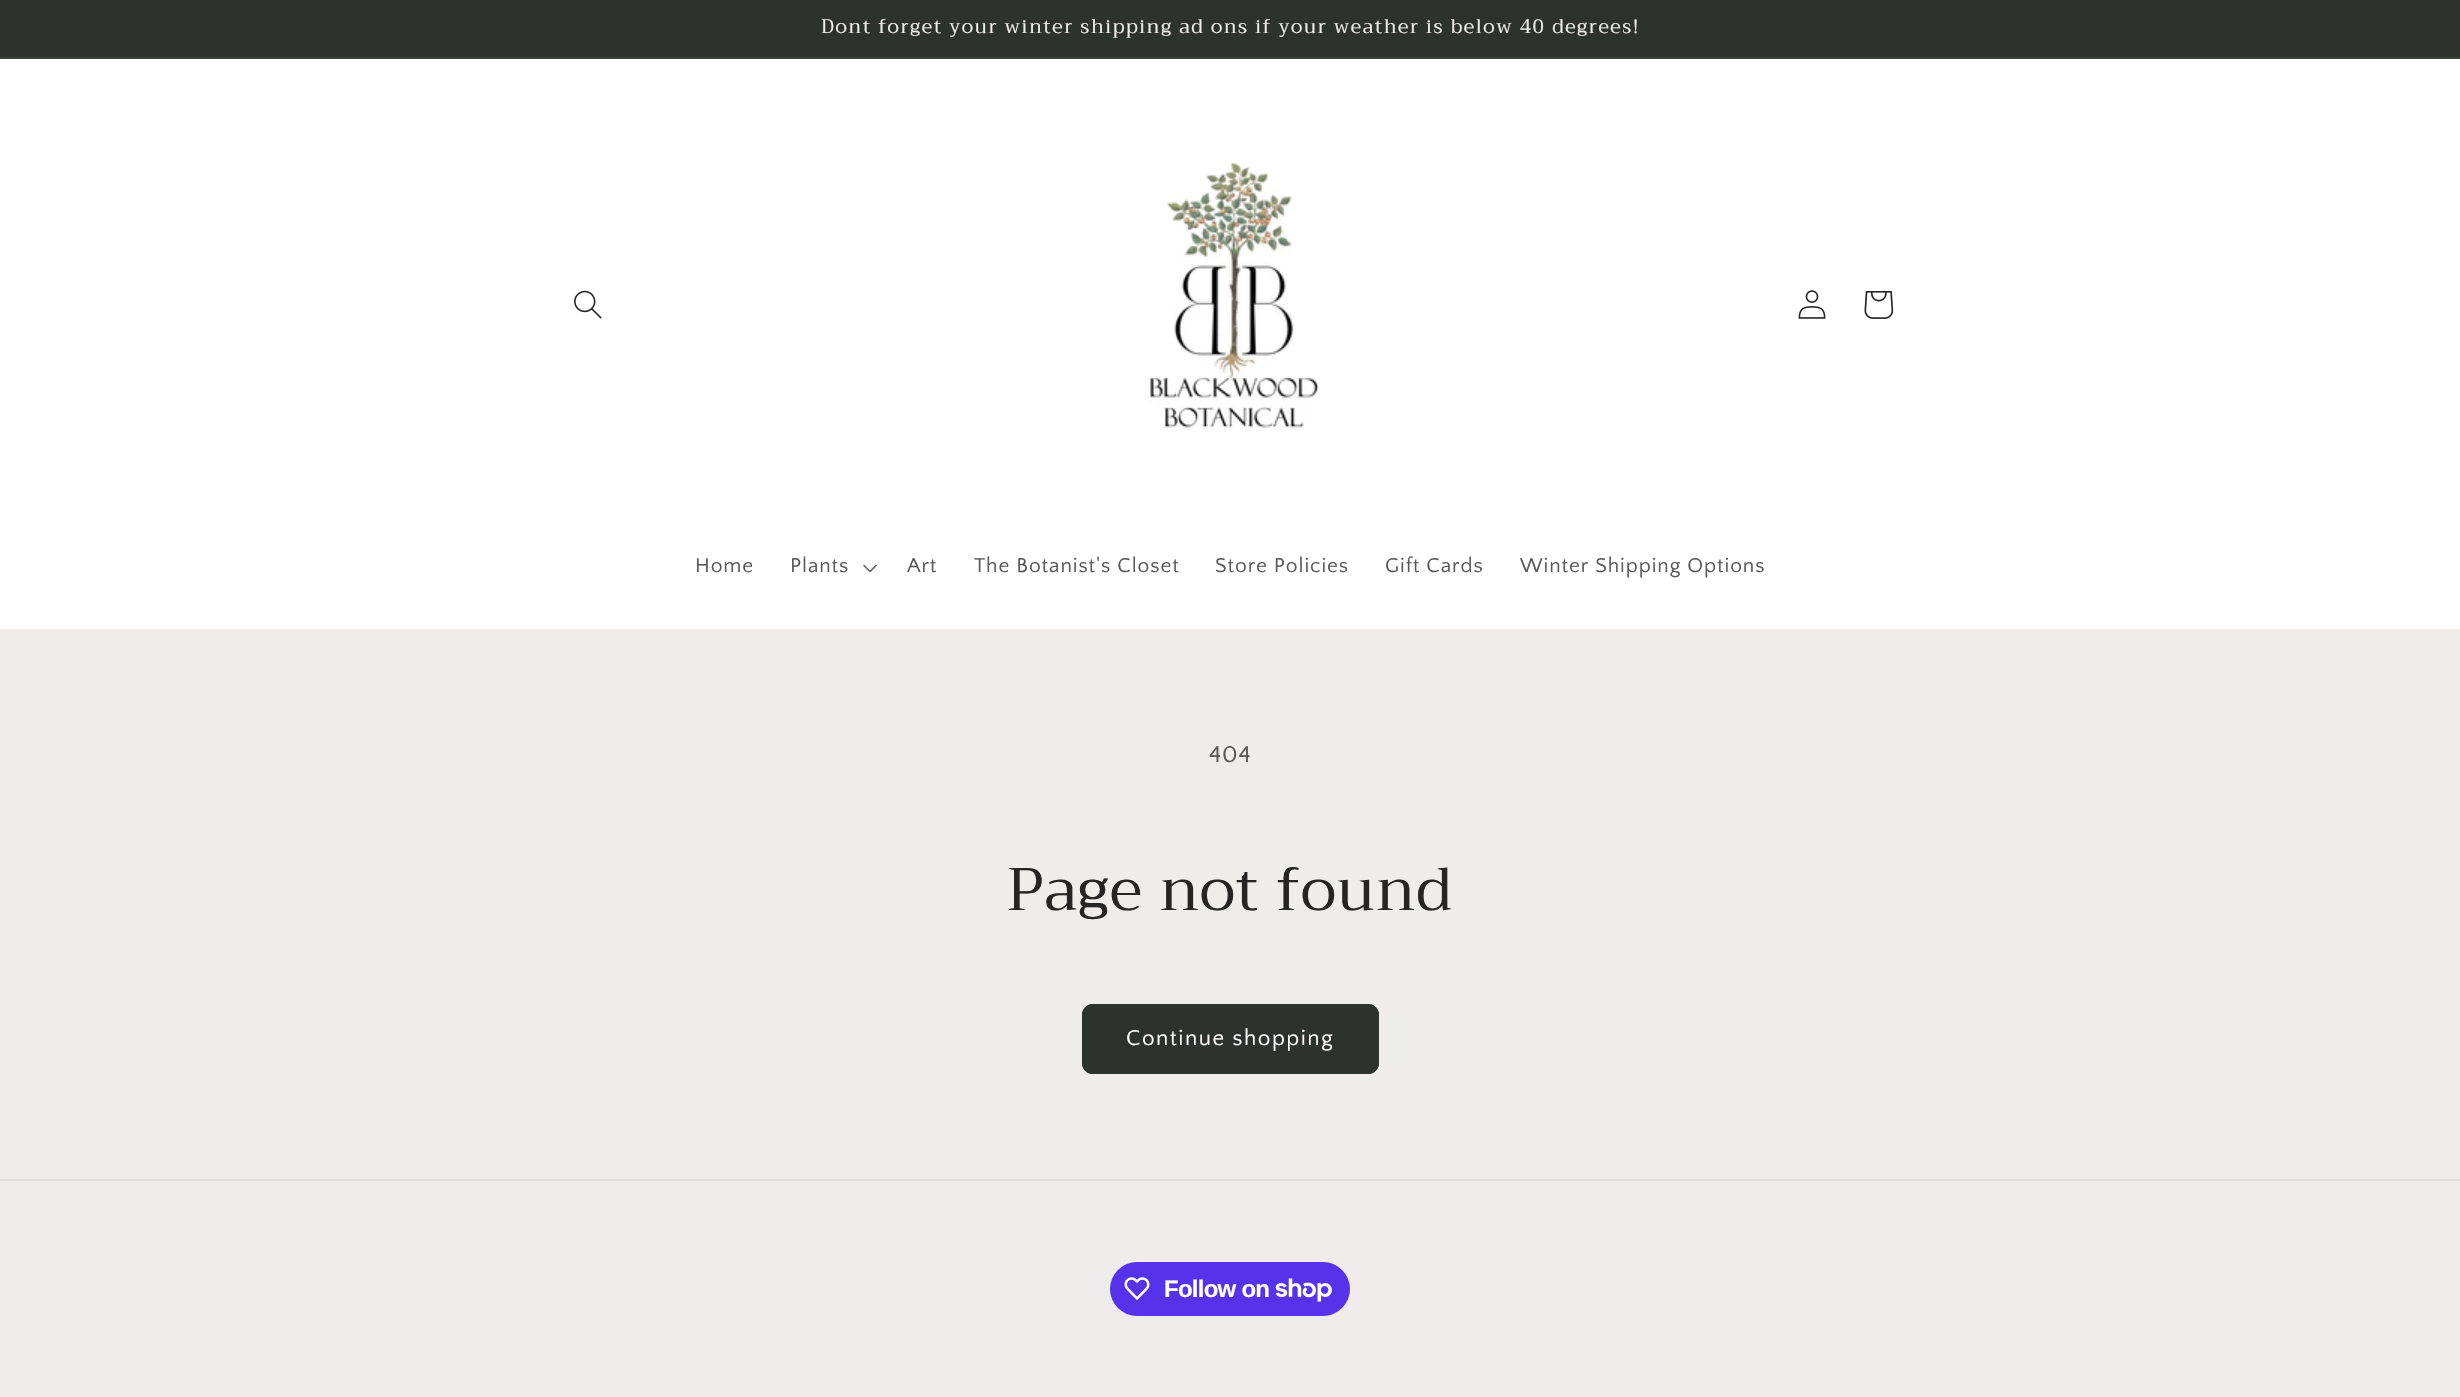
static SkFont makeFont(const char* family, int weight, float size, bool italic = false) {
  SkFontStyle style(weight, SkFontStyle::kNormal_Width,
    italic ? SkFontStyle::kItalic_Slant : SkFontStyle::kUpright_Slant);
  SkFont result(fontMgr->matchFamilyStyle(family, style), size);
  result.setSubpixel(true);
  return result;
}

static void spacedText(SkCanvas* c, const char* s, float x, float y, const SkFont& font, const SkPaint& ink, float letter, float word) {
  std::vector<SkGlyphID> glyphs(font.countText(s, strlen(s), SkTextEncoding::kUTF8));
  std::vector<float> xs(glyphs.size());
  font.textToGlyphs(s, strlen(s), SkTextEncoding::kUTF8, glyphs);
  font.getXPos(glyphs, xs, x);
  float extra = 0;
  for (size_t i = 0; i < glyphs.size(); i++) {
    xs[i] += extra;
    extra += letter + word * (glyphs[i] == font.unicharToGlyph(' '));
  }
  c->drawTextBlob(SkTextBlob::MakeFromPosHGlyphs(glyphs, xs, y, font), 0, 0, ink);
}

static void box(SkCanvas* c, float l, float t, float r, float b, SkColor color) {
  SkPaint ink(SkColor4f::FromColor(color));
  ink.setAntiAlias(true);
  c->drawRect(SkRect::MakeLTRB(l, t, r, b), ink);
}

static void roundBox(SkCanvas* c, float l, float t, float r, float b, float radius, SkColor color) {
  SkPaint ink(SkColor4f::FromColor(color));
  ink.setAntiAlias(true);
  c->drawRoundRect(SkRect::MakeLTRB(l, t, r, b), radius, radius, ink);
}

static void picture(SkCanvas* c, const char* path, float l, float t, float r, float b) {
  auto image = SkImages::DeferredFromEncodedData(SkData::MakeFromFileName(path));
  c->drawImageRect(image, SkRect::MakeLTRB(l, t, r, b), SkSamplingOptions());
}

void draw(SkCanvas* c) {
  SkPaint paint;
  paint.setAntiAlias(true);
  c->clear(0xffefecec);
  box(c, 0, 0, 2460, 57, 0xff2c332f);
  box(c, 0, 57, 2460, 59, 0xff3c423e);
  SkFont face1 = makeFont("Trirong", 400, 19.5f);
  paint.setColor(0xffefecec);
  spacedText(c, "Dont forget your winter shipping ad ons if your weather is below 40 degrees!", 821, 33, face1, paint, 1.5f, 0);
  box(c, 0, 59, 2460, 629, 0xffffffff);
  picture(c, "img_01.png", 574, 290, 602, 319);
  picture(c, "img_02.png", 1148, 162, 1319, 430);
  picture(c, "img_03.png", 1798, 290, 1826, 319);
  picture(c, "img_04.png", 1864, 291, 1894, 319);
  SkFont face2 = makeFont("Quattrocento Sans", 400, 21);
  paint.setColor(0xff585757);
  spacedText(c, "Home", 695, 572, face2, paint, 0.9f, 0);
  spacedText(c, "Plants", 790, 572, face2, paint, 0.9f, 0);
  picture(c, "img_05.png", 863, 564, 877, 573);
  spacedText(c, "Art", 907, 572, face2, paint, 0.9f, 0);
  spacedText(c, "The Botanist's Closet", 974, 572, face2, paint, 0.9f, 0);
  spacedText(c, "Store Policies", 1215, 572, face2, paint, 0.9f, 0);
  spacedText(c, "Gift Cards", 1385, 572, face2, paint, 0.9f, 0);
  spacedText(c, "Winter Shipping Options", 1520, 572, face2, paint, 0.9f, 0);
  SkFont face3 = makeFont("Quattrocento Sans", 400, 24);
  spacedText(c, "404", 1209, 762, face3, paint, 0.9f, 0);
  SkFont face4 = makeFont("Trirong", 400, 60);
  paint.setColor(0xff252525);
  spacedText(c, "Page not found", 1007, 910, face4, paint, 0.9f, 0);
  roundBox(c, 1082, 1004, 1379, 1074, 11, 0xff2c332f);
  paint.setStyle(SkPaint::kStroke_Style);
  paint.setStrokeWidth(2);
  paint.setColor(0xff2c332f);
  c->drawRoundRect(SkRect::MakeLTRB(1083, 1005, 1378, 1073), 10, 10, paint);
  SkFont face5 = makeFont("Quattrocento Sans", 400, 22.5f);
  paint.setStyle(SkPaint::kFill_Style);
  paint.setColor(0xffffffff);
  spacedText(c, "Continue shopping", 1126, 1045, face5, paint, 1.5f, 0);
  box(c, 0, 1179, 2460, 1181, 0xffdfdcdc);
  roundBox(c, 1110, 1262, 1350, 1316, 27, 0xff5433eb);
  picture(c, "img_06.png", 1124, 1277, 1150, 1300);
  SkFont face6 = makeFont("Liberation Sans", 700, 24);
  spacedText(c, "Follow on", 1164, 1297, face6, paint, -0.75f, 0);
  picture(c, "img_07.png", 1275, 1278, 1332, 1302);
}
